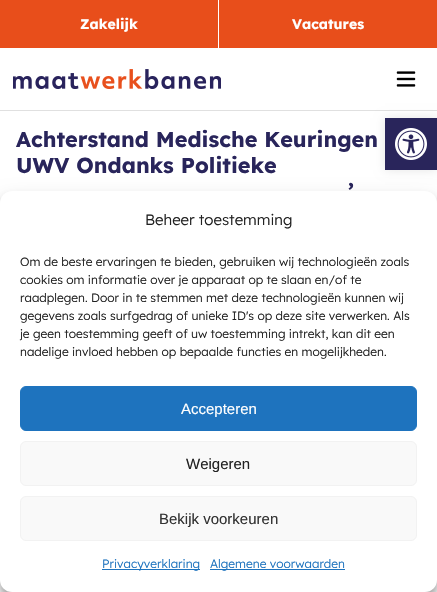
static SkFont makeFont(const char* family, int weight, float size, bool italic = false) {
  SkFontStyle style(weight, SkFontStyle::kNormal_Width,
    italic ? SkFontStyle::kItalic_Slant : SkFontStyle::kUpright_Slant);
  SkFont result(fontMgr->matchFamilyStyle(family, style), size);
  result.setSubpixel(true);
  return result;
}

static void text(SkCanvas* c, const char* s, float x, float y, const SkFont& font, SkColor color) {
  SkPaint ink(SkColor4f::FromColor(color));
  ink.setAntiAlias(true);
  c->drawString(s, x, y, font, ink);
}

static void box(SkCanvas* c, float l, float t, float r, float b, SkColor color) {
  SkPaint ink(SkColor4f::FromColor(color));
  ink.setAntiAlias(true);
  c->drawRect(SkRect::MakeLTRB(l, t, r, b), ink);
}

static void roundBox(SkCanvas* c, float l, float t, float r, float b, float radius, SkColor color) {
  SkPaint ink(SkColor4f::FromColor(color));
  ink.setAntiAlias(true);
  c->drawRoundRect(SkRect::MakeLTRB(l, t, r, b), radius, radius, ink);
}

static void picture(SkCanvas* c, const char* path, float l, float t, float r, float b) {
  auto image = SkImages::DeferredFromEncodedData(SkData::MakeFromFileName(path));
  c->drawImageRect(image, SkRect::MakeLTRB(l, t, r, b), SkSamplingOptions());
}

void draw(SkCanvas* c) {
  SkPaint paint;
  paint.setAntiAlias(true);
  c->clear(0xffffffff);
  box(c, 0, 110, 437, 111, 0xffe0e0e0);
  box(c, 0, 0, 218, 48, 0xffe84e1b);
  SkFont face1 = makeFont("Lexend Deca", 700, 14);
  text(c, "Zakelijk", 80, 29, face1, 0xffffffff);
  box(c, 219, 0, 437, 48, 0xffe84e1b);
  text(c, "Vacatures", 292, 29, face1, 0xffffffff);
  picture(c, "img_01.png", 13, 69, 221, 89);
  picture(c, "img_02.png", 396, 71, 416, 87);
  SkFont face2 = makeFont("Lexend Deca", 700, 21.6f);
  text(c, "Achterstand Medische Keuringen", 16, 147, face2, 0xff29255b);
  text(c, "UWV Ondanks Politieke", 16, 173, face2, 0xff29255b);
  text(c, "’", 348, 199, face2, 0xff29255b);
  paint.setColor(0x1a000000);
  paint.setMaskFilter(SkMaskFilter::MakeBlur(kNormal_SkBlurStyle, 5));
  c->drawRect(SkRect::MakeLTRB(385, 118, 437, 170), paint);
  paint.setMaskFilter(nullptr);
  box(c, 385, 118, 437, 170, 0xff29255b);
  picture(c, "img_03.png", 395, 128, 427, 160);
  paint.setColor(0x3b000000);
  paint.setMaskFilter(SkMaskFilter::MakeBlur(kNormal_SkBlurStyle, 3));
  c->drawRoundRect(SkRect::MakeLTRB(0, 197, 437, 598), 12, 12, paint);
  paint.setMaskFilter(nullptr);
  paint.setColor(0x30000000);
  paint.setMaskFilter(SkMaskFilter::MakeBlur(kNormal_SkBlurStyle, 10));
  c->drawRoundRect(SkRect::MakeLTRB(0, 201, 437, 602), 12, 12, paint);
  paint.setMaskFilter(nullptr);
  roundBox(c, 0, 191, 437, 592, 12, 0xffffffff);
  SkFont face3 = makeFont("Lexend Deca", 300, 15);
  text(c, "Beheer toestemming", 145, 225, face3, 0xff222222);
  SkFont face4 = makeFont("Lexend Deca", 300, 12);
  text(c, "Om de beste ervaringen te bieden, gebruiken wij technologieën zoals", 20, 266, face4, 0xff222222);
  text(c, "cookies om informatie over je apparaat op te slaan en/of te", 20, 284, face4, 0xff222222);
  text(c, "raadplegen. Door in te stemmen met deze technologieën kunnen wij", 20, 302, face4, 0xff222222);
  text(c, "gegevens zoals surfgedrag of unieke ID's op deze site verwerken. Als", 20, 320, face4, 0xff222222);
  text(c, "je geen toestemming geeft of uw toestemming intrekt, kan dit een", 20, 338, face4, 0xff222222);
  text(c, "nadelige invloed hebben op bepaalde functies en mogelijkheden.", 20, 356, face4, 0xff222222);
  paint.setColor(0xff1e73be);
  c->drawRoundRect(SkRect::MakeLTRB(20.5f, 386.5f, 416.5f, 430.5f), 5.5f, 5.5f, paint);
  paint.setStyle(SkPaint::kStroke_Style);
  paint.setStrokeWidth(1);
  c->drawRoundRect(SkRect::MakeLTRB(20.5f, 386.5f, 416.5f, 430.5f), 5.5f, 5.5f, paint);
  SkFont face5 = makeFont("Liberation Sans", 400, 15);
  text(c, "Accepteren", 181, 414, face5, 0xffffffff);
  paint.setStyle(SkPaint::kFill_Style);
  paint.setColor(0xfff9f9f9);
  c->drawRoundRect(SkRect::MakeLTRB(20.5f, 441.5f, 416.5f, 485.5f), 5.5f, 5.5f, paint);
  paint.setStyle(SkPaint::kStroke_Style);
  paint.setColor(0xfff2f2f2);
  c->drawRoundRect(SkRect::MakeLTRB(20.5f, 441.5f, 416.5f, 485.5f), 5.5f, 5.5f, paint);
  text(c, "Weigeren", 186, 469, face5, 0xff222222);
  paint.setStyle(SkPaint::kFill_Style);
  paint.setColor(0xfff9f9f9);
  c->drawRoundRect(SkRect::MakeLTRB(20.5f, 496.5f, 416.5f, 540.5f), 5.5f, 5.5f, paint);
  paint.setStyle(SkPaint::kStroke_Style);
  paint.setColor(0xfff2f2f2);
  c->drawRoundRect(SkRect::MakeLTRB(20.5f, 496.5f, 416.5f, 540.5f), 5.5f, 5.5f, paint);
  text(c, "Bekijk voorkeuren", 159, 524, face5, 0xff333333);
  box(c, 102, 569, 200, 570, 0xff1e73be);
  text(c, "Privacyverklaring", 102, 568, face4, 0xff1e73be);
  box(c, 210, 569, 345, 570, 0xff1e73be);
  text(c, "Algemene voorwaarden", 210, 568, face4, 0xff1e73be);
}
